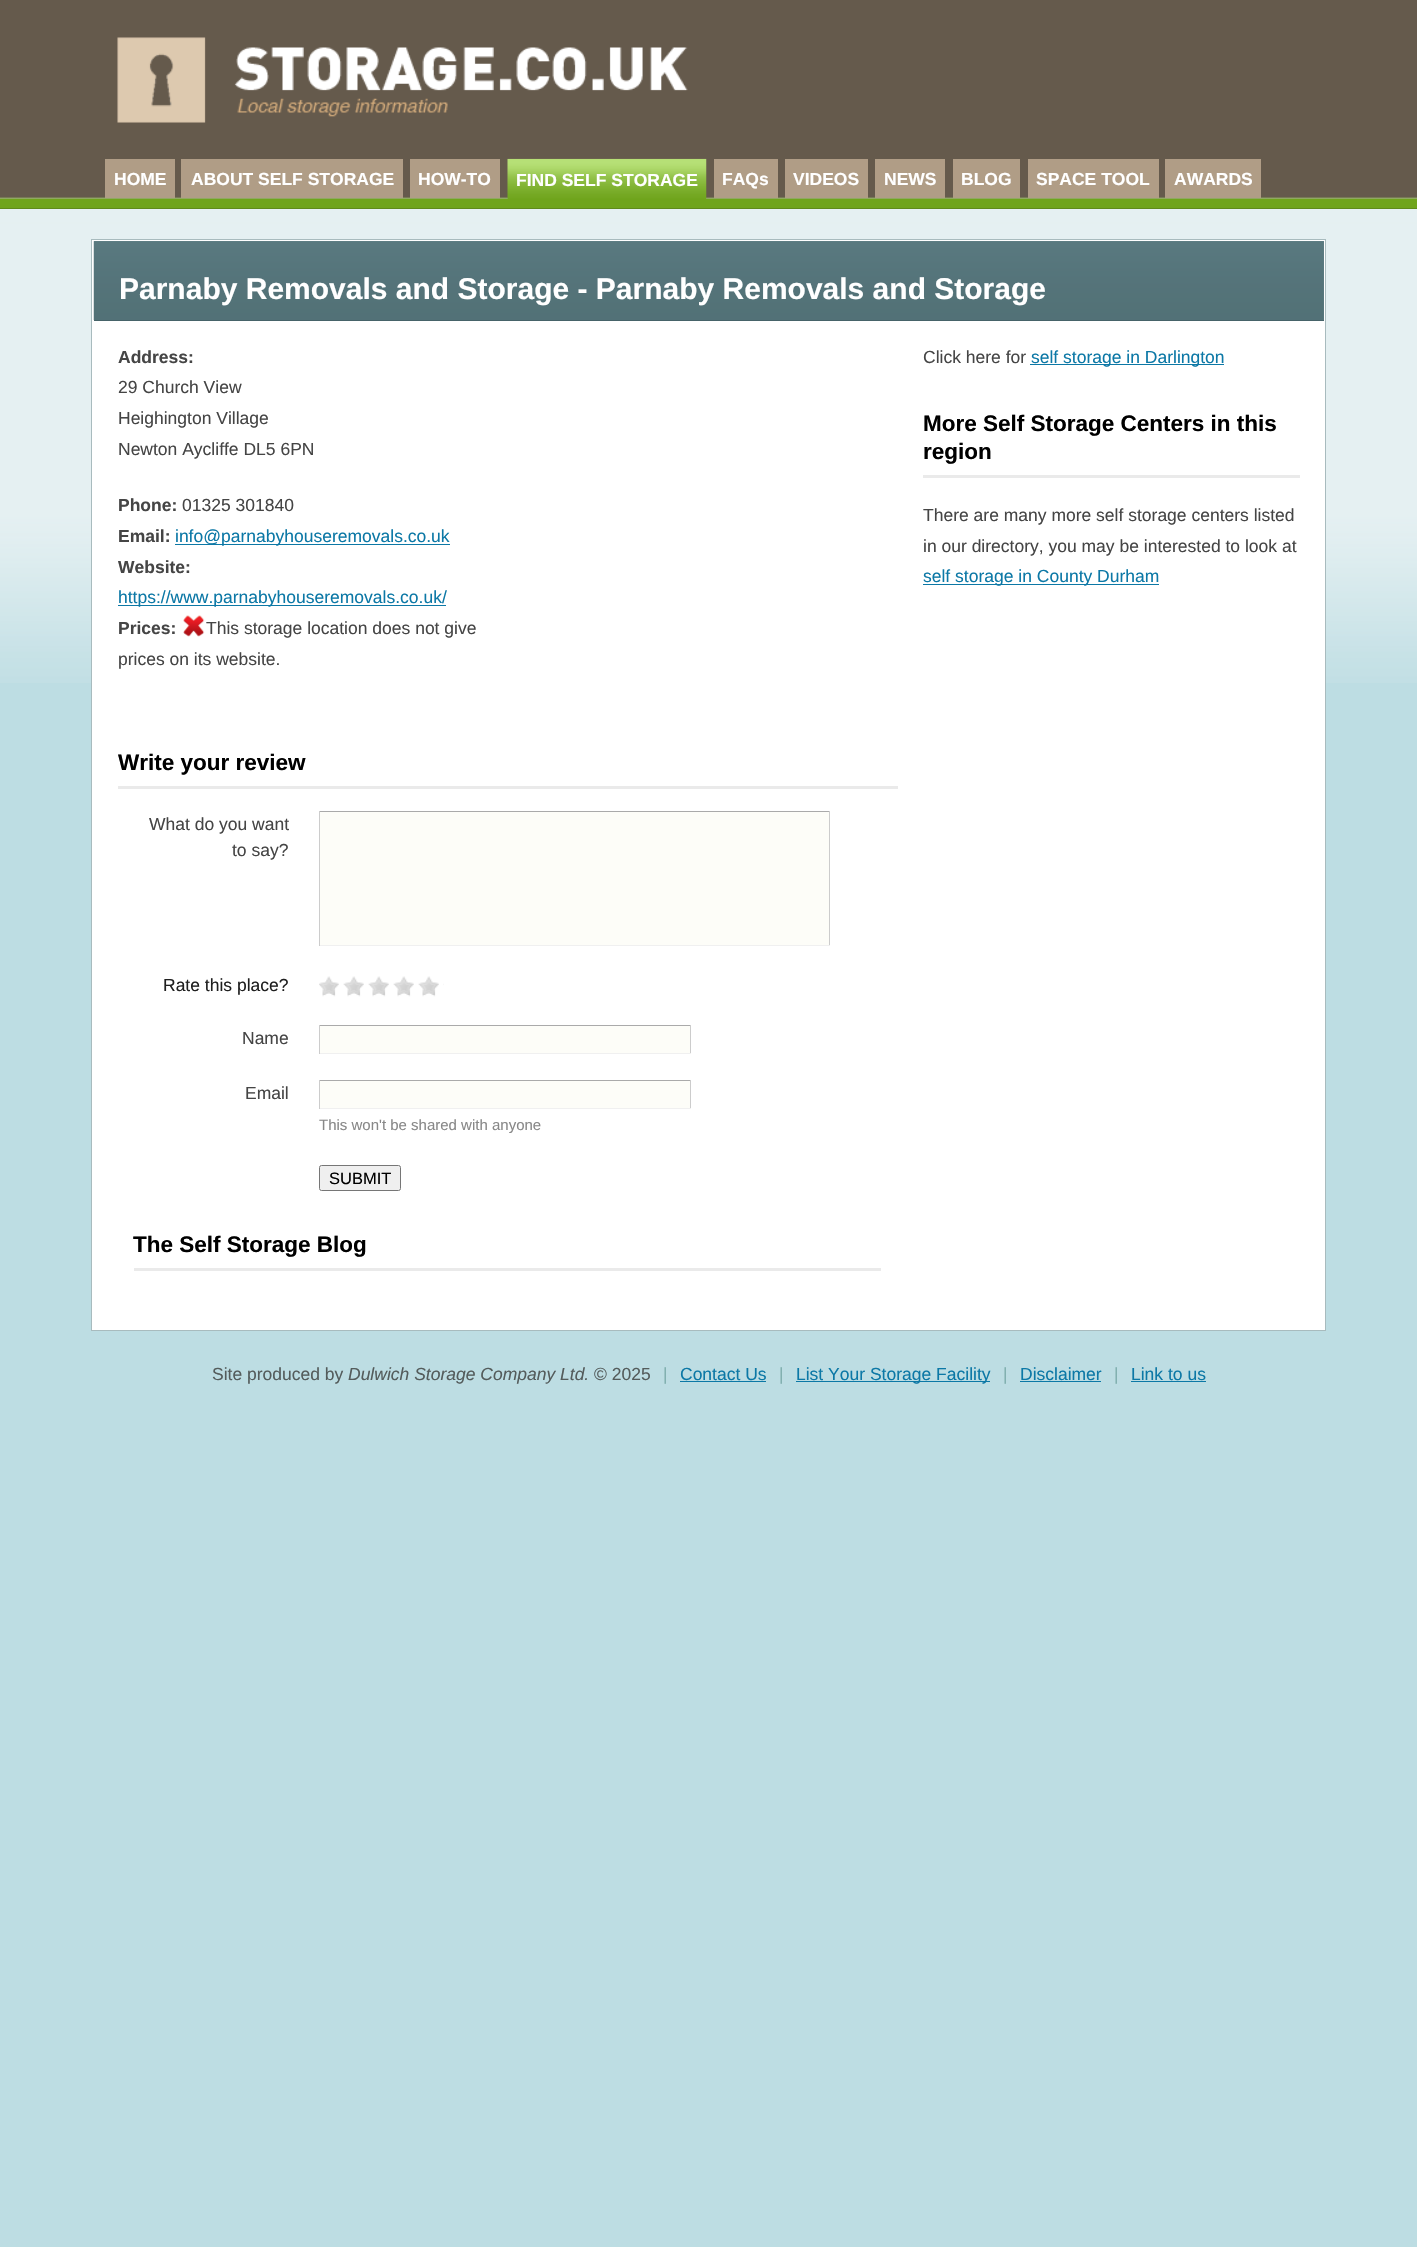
static SkFont makeFont(const char* family, int weight, float size, bool italic = false) {
  SkFontStyle style(weight, SkFontStyle::kNormal_Width,
    italic ? SkFontStyle::kItalic_Slant : SkFontStyle::kUpright_Slant);
  SkFont result(fontMgr->matchFamilyStyle(family, style), size);
  result.setSubpixel(true);
  return result;
}

static void text(SkCanvas* c, const char* s, float x, float y, const SkFont& font, SkColor color) {
  SkPaint ink(SkColor4f::FromColor(color));
  ink.setAntiAlias(true);
  c->drawString(s, x, y, font, ink);
}

static void box(SkCanvas* c, float l, float t, float r, float b, SkColor color) {
  SkPaint ink(SkColor4f::FromColor(color));
  ink.setAntiAlias(true);
  c->drawRect(SkRect::MakeLTRB(l, t, r, b), ink);
}

static void picture(SkCanvas* c, const char* path, float l, float t, float r, float b) {
  auto image = SkImages::DeferredFromEncodedData(SkData::MakeFromFileName(path));
  c->drawImageRect(image, SkRect::MakeLTRB(l, t, r, b), SkSamplingOptions());
}

void draw(SkCanvas* c) {
  SkPaint paint;
  paint.setAntiAlias(true);
  c->clear(0xffbddde3);
  box(c, 0, 0, 1417, 199, 0xff655a4c);
  picture(c, "img_01.png", 0, 197, 1417, 199);
  box(c, 0, 199, 1417, 208, 0xff6fa41c);
  picture(c, "img_02.png", 117, 37, 688, 123);
  box(c, 105, 159, 175, 198, 0xffb09d86);
  SkFont face1 = makeFont("Liberation Sans", 700, 17.5f);
  text(c, "HOME", 114, 185, face1, 0xffffffff);
  box(c, 181, 159, 403, 198, 0xffb09d86);
  text(c, "ABOUT SELF STORAGE", 191, 185, face1, 0xffffffff);
  box(c, 410, 159, 500, 198, 0xffb09d86);
  text(c, "HOW-TO", 418, 185, face1, 0xffffffff);
  box(c, 508, 198, 706, 199, 0xff6fa41c);
  picture(c, "img_03.png", 507, 158, 707, 199);
  text(c, "FIND SELF STORAGE", 516, 186, face1, 0xffffffff);
  box(c, 714, 159, 778, 198, 0xffb09d86);
  text(c, "FAQs", 722, 185, face1, 0xffffffff);
  box(c, 785, 159, 868, 198, 0xffb09d86);
  text(c, "VIDEOS", 793, 185, face1, 0xffffffff);
  box(c, 875, 159, 945, 198, 0xffb09d86);
  text(c, "NEWS", 884, 185, face1, 0xffffffff);
  box(c, 953, 159, 1020, 198, 0xffb09d86);
  text(c, "BLOG", 961, 185, face1, 0xffffffff);
  box(c, 1028, 159, 1159, 198, 0xffb09d86);
  text(c, "SPACE TOOL", 1036, 185, face1, 0xffffffff);
  box(c, 1165, 159, 1261, 198, 0xffb09d86);
  text(c, "AWARDS", 1174, 185, face1, 0xffffffff);
  picture(c, "img_04.png", 0, 209, 1417, 683);
  box(c, 0, 208, 1417, 209, 0xff5f8a1c);
  paint.setColor(0xffffffff);
  c->drawRect(SkRect::MakeLTRB(91.5f, 239.5f, 1325.5f, 1330.5f), paint);
  paint.setStyle(SkPaint::kStroke_Style);
  paint.setStrokeWidth(1);
  paint.setColor(0xffa8bbbe);
  c->drawRect(SkRect::MakeLTRB(91.5f, 239.5f, 1325.5f, 1330.5f), paint);
  box(c, 94, 241, 1324, 320, 0xff68878e);
  picture(c, "img_05.png", 93, 241, 1324, 320);
  box(c, 94, 320, 1324, 321, 0xff466369);
  SkFont face2 = makeFont("Liberation Sans", 700, 30);
  text(c, "Parnaby Removals and Storage - Parnaby Removals and Storage", 119, 299, face2, 0xffffffff);
  text(c, "Address:", 118, 363, face1, 0xff454545);
  SkFont face3 = makeFont("Liberation Sans", 400, 17.5f);
  text(c, "29 Church View", 118, 393, face3, 0xff454545);
  text(c, "Heighington Village", 118, 424, face3, 0xff454545);
  text(c, "Newton Aycliffe DL5 6PN", 118, 455, face3, 0xff454545);
  text(c, "Phone:", 118, 511, face1, 0xff454545);
  text(c, "01325 301840", 182, 511, face3, 0xff454545);
  text(c, "Email:", 118, 542, face1, 0xff454545);
  box(c, 175, 544, 450, 545, 0xff0c78a6);
  text(c, "info@parnabyhouseremovals.co.uk", 175, 542, face3, 0xff0c78a6);
  text(c, "Website:", 118, 573, face1, 0xff454545);
  box(c, 118, 605, 446, 606, 0xff0c78a6);
  text(c, "https://www.parnabyhouseremovals.co.uk/", 118, 603, face3, 0xff0c78a6);
  text(c, "Prices:", 118, 634, face1, 0xff454545);
  picture(c, "img_06.png", 183, 615, 205, 637);
  text(c, "This storage location does not give", 206, 634, face3, 0xff454545);
  text(c, "prices on its website.", 118, 665, face3, 0xff454545);
  box(c, 118, 786, 898, 789, 0xffeaeaea);
  SkFont face4 = makeFont("Liberation Sans", 700, 22.5f);
  text(c, "Write your review", 118, 770, face4, 0xff000000);
  text(c, "What do you want", 149, 830, face3, 0xff454545);
  text(c, "to say?", 232, 856, face3, 0xff454545);
  box(c, 320, 812, 829, 945, 0xfffdfdf8);
  box(c, 319, 811, 830, 812, 0xffaaaaaa);
  box(c, 829, 811, 830, 946, 0xffcccccc);
  box(c, 319, 945, 830, 946, 0xfff0f0f0);
  box(c, 319, 811, 320, 946, 0xffcccccc);
  text(c, "Rate this place?", 163, 991, face3, 0xff1f1f1f);
  picture(c, "img_07.png", 319, 976, 444, 997);
  text(c, "Name", 242, 1044, face3, 0xff454545);
  box(c, 320, 1026, 690, 1053, 0xfffdfdf8);
  box(c, 319, 1025, 691, 1026, 0xffaaaaaa);
  box(c, 690, 1025, 691, 1054, 0xffcccccc);
  box(c, 319, 1053, 691, 1054, 0xfff0f0f0);
  box(c, 319, 1025, 320, 1054, 0xffcccccc);
  text(c, "Email", 245, 1099, face3, 0xff454545);
  box(c, 320, 1081, 690, 1108, 0xfffdfdf8);
  box(c, 319, 1080, 691, 1081, 0xffaaaaaa);
  box(c, 690, 1080, 691, 1109, 0xffcccccc);
  box(c, 319, 1108, 691, 1109, 0xfff0f0f0);
  box(c, 319, 1080, 320, 1109, 0xffcccccc);
  SkFont face5 = makeFont("Liberation Sans", 400, 15);
  text(c, "This won't be shared with anyone", 319, 1130, face5, 0xff888888);
  paint.setStyle(SkPaint::kFill_Style);
  paint.setColor(0xffefefef);
  c->drawRoundRect(SkRect::MakeLTRB(319.5f, 1165.5f, 400.5f, 1190.5f), 2, 2, paint);
  paint.setStyle(SkPaint::kStroke_Style);
  paint.setColor(0xff767676);
  c->drawRoundRect(SkRect::MakeLTRB(319.5f, 1165.5f, 400.5f, 1190.5f), 2, 2, paint);
  SkFont face6 = makeFont("Liberation Sans", 400, 16.5f);
  text(c, "SUBMIT", 329, 1184, face6, 0xff000000);
  box(c, 134, 1268, 881, 1271, 0xffeaeaea);
  text(c, "The Self Storage Blog", 133, 1252, face4, 0xff000000);
  text(c, "Click here for", 923, 363, face3, 0xff454545);
  box(c, 1030, 364, 1224, 365, 0xff0c78a6);
  text(c, "self storage in Darlington", 1031, 363, face3, 0xff0c78a6);
  box(c, 923, 475, 1300, 478, 0xffeaeaea);
  text(c, "More Self Storage Centers in this", 923, 431, face4, 0xff000000);
  text(c, "region", 923, 459, face4, 0xff000000);
  text(c, "There are many more self storage centers listed", 923, 521, face3, 0xff454545);
  text(c, "in our directory, you may be interested to look at", 923, 552, face3, 0xff454545);
  box(c, 923, 584, 1159, 585, 0xff0c78a6);
  text(c, "self storage in County Durham", 923, 582, face3, 0xff0c78a6);
  text(c, "Site produced by", 212, 1380, face3, 0xff545c5c);
  SkFont face7 = makeFont("Liberation Sans", 400, 17.5f, true);
  text(c, "Dulwich Storage Company Ltd.", 348, 1380, face7, 0xff545c5c);
  text(c, "© 2025", 594, 1380, face3, 0xff545c5c);
  text(c, "|", 663, 1380, face3, 0xff81b0b0);
  text(c, "Contact Us", 680, 1380, face3, 0xff0c78a6);
  box(c, 680, 1381, 766, 1382, 0xff0c78a6);
  text(c, "|", 779, 1380, face3, 0xff81b0b0);
  box(c, 796, 1381, 990, 1382, 0xff0c78a6);
  text(c, "List Your Storage Facility", 796, 1380, face3, 0xff0c78a6);
  text(c, "|", 1003, 1380, face3, 0xff81b0b0);
  text(c, "Disclaimer", 1020, 1380, face3, 0xff0c78a6);
  box(c, 1020, 1381, 1101, 1382, 0xff0c78a6);
  text(c, "|", 1114, 1380, face3, 0xff81b0b0);
  text(c, "Link to us", 1131, 1380, face3, 0xff0c78a6);
  box(c, 1131, 1381, 1206, 1382, 0xff0c78a6);
}
